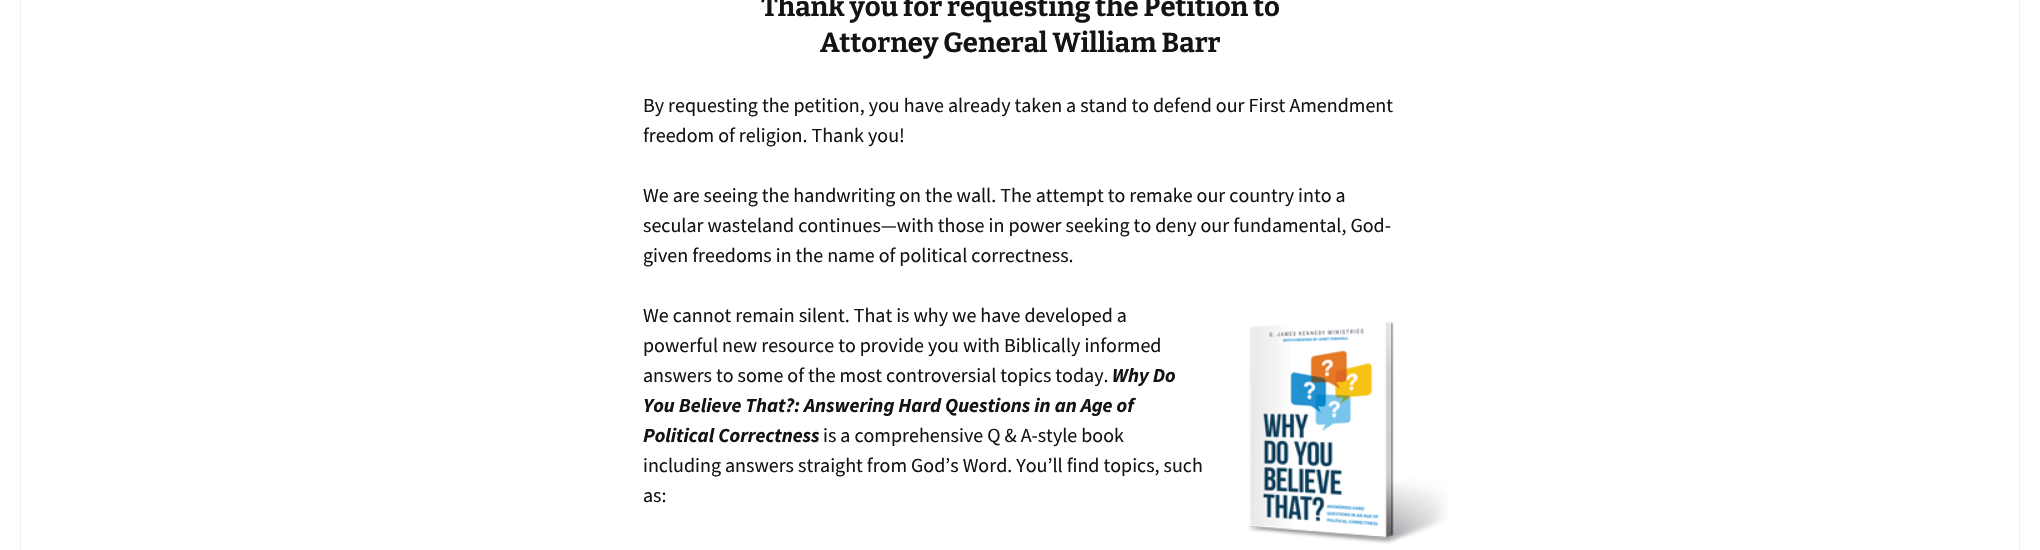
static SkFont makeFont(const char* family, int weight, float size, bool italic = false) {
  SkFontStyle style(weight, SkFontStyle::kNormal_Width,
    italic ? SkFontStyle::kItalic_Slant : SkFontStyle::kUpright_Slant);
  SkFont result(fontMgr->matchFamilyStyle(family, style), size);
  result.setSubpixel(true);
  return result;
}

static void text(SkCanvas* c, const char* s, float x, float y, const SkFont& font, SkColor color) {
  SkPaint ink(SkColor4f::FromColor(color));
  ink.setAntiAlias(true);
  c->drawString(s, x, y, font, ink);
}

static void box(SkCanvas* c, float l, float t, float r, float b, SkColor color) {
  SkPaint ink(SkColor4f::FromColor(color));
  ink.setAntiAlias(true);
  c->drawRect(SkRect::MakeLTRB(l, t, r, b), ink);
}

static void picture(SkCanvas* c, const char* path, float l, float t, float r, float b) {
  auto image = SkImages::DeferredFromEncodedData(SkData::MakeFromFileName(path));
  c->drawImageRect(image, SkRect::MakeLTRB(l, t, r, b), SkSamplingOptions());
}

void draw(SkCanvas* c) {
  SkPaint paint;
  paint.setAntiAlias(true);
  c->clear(0xffffffff);
  box(c, 2019, 0, 2020, 550, 0xfff2f2f2);
  box(c, 20, 0, 21, 550, 0xfff2f2f2);
  SkFont face1 = makeFont("Bitter", 100, 27.5f);
  text(c, "Thank you for requesting the Petition to", 761, 16, face1, 0xff141412);
  text(c, "Attorney General William Barr", 820, 52, face1, 0xff141412);
  SkFont face2 = makeFont("Source Sans Pro", 400, 20);
  text(c, "By requesting the petition, you have already taken a stand to defend our First Amendment", 643, 112, face2, 0xff141412);
  text(c, "freedom of religion. Thank you!", 643, 142, face2, 0xff141412);
  text(c, "We are seeing the handwriting on the wall. The attempt to remake our country into a", 643, 202, face2, 0xff141412);
  text(c, "secular wasteland continues—with those in power seeking to deny our fundamental, God-", 643, 232, face2, 0xff141412);
  text(c, "given freedoms in the name of political correctness.", 643, 262, face2, 0xff141412);
  text(c, "We cannot remain silent. That is why we have developed a", 643, 322, face2, 0xff141412);
  text(c, "powerful new resource to provide you with Biblically informed", 643, 352, face2, 0xff141412);
  picture(c, "img_01.png", 1247, 321, 1448, 544);
  text(c, "answers to some of the most controversial topics today.", 643, 382, face2, 0xff141412);
  SkFont face3 = makeFont("Source Sans Pro", 700, 20, true);
  text(c, "Why Do", 1112, 382, face3, 0xff141412);
  text(c, "You Believe That?: Answering Hard Questions in an Age of", 643, 412, face3, 0xff141412);
  text(c, "Political Correctness", 643, 442, face3, 0xff141412);
  text(c, "is a comprehensive Q & A-style book", 823, 442, face2, 0xff141412);
  text(c, "including answers straight from God’s Word. You’ll find topics, such", 643, 472, face2, 0xff141412);
  text(c, "as:", 643, 502, face2, 0xff141412);
}
